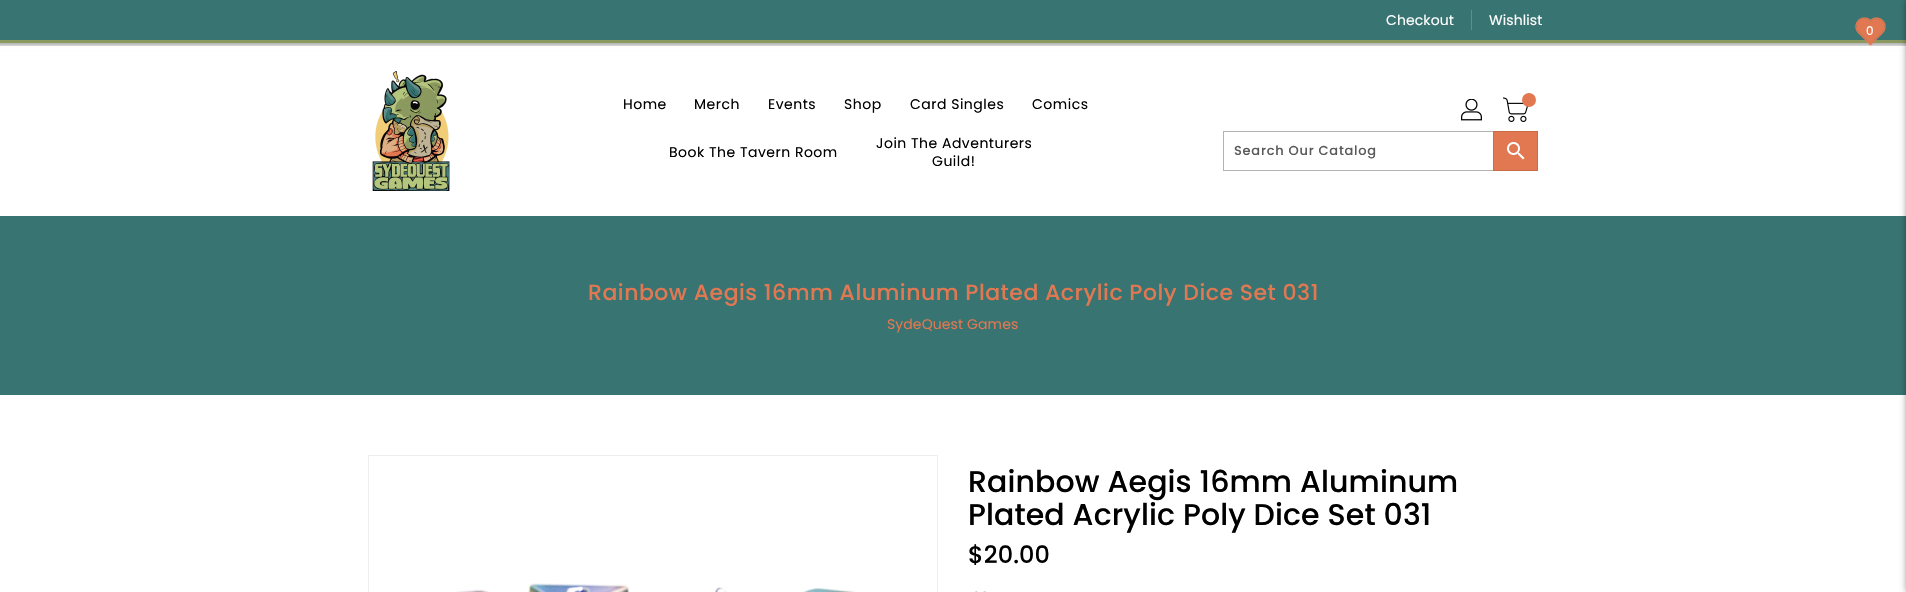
static SkFont makeFont(const char* family, int weight, float size, bool italic = false) {
  SkFontStyle style(weight, SkFontStyle::kNormal_Width,
    italic ? SkFontStyle::kItalic_Slant : SkFontStyle::kUpright_Slant);
  SkFont result(fontMgr->matchFamilyStyle(family, style), size);
  result.setSubpixel(true);
  return result;
}

static void spacedText(SkCanvas* c, const char* s, float x, float y, const SkFont& font, const SkPaint& ink, float letter, float word) {
  std::vector<SkGlyphID> glyphs(font.countText(s, strlen(s), SkTextEncoding::kUTF8));
  std::vector<float> xs(glyphs.size());
  font.textToGlyphs(s, strlen(s), SkTextEncoding::kUTF8, glyphs);
  font.getXPos(glyphs, xs, x);
  float extra = 0;
  for (size_t i = 0; i < glyphs.size(); i++) {
    xs[i] += extra;
    extra += letter + word * (glyphs[i] == font.unicharToGlyph(' '));
  }
  c->drawTextBlob(SkTextBlob::MakeFromPosHGlyphs(glyphs, xs, y, font), 0, 0, ink);
}

static void box(SkCanvas* c, float l, float t, float r, float b, SkColor color) {
  SkPaint ink(SkColor4f::FromColor(color));
  ink.setAntiAlias(true);
  c->drawRect(SkRect::MakeLTRB(l, t, r, b), ink);
}

static void picture(SkCanvas* c, const char* path, float l, float t, float r, float b) {
  auto image = SkImages::DeferredFromEncodedData(SkData::MakeFromFileName(path));
  c->drawImageRect(image, SkRect::MakeLTRB(l, t, r, b), SkSamplingOptions());
}

void draw(SkCanvas* c) {
  SkPaint paint;
  paint.setAntiAlias(true);
  c->clear(0xffffffff);
  paint.setColor(0x4d000000);
  paint.setMaskFilter(SkMaskFilter::MakeBlur(kNormal_SkBlurStyle, 2));
  c->drawRect(SkRect::MakeLTRB(-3, -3, 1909, 46), paint);
  paint.setMaskFilter(nullptr);
  box(c, 0, 0, 1906, 40, 0xff387472);
  box(c, 0, 40, 1906, 43, 0xff8b9a61);
  SkFont face1 = makeFont("Poppins", 400, 14);
  paint.setColor(0xffffffff);
  spacedText(c, "Checkout", 1386, 25, face1, paint, 0.1f, 0);
  box(c, 1471, 10, 1472, 30, 0xff60908e);
  spacedText(c, "Wishlist", 1489, 25, face1, paint, 0.1f, 0);
  box(c, 0, 46, 1906, 50, 0xffffffff);
  picture(c, "img_01.png", 372, 71, 450, 191);
  paint.setColor(0xff000000);
  spacedText(c, "Home", 623, 109, face1, paint, 0.5f, 0);
  spacedText(c, "Merch", 694, 109, face1, paint, 0.5f, 0);
  spacedText(c, "Events", 768, 109, face1, paint, 0.5f, 0);
  spacedText(c, "Shop", 844, 109, face1, paint, 0.5f, 0);
  spacedText(c, "Card Singles", 910, 109, face1, paint, 0.5f, 0);
  spacedText(c, "Comics", 1032, 109, face1, paint, 0.5f, 0);
  spacedText(c, "Book The Tavern Room", 669, 157, face1, paint, 0.5f, 0);
  spacedText(c, "Join The Adventurers", 876, 148, face1, paint, 0.5f, 0);
  spacedText(c, "Guild!", 932, 166, face1, paint, 0.5f, 0);
  picture(c, "img_02.png", 1461, 99, 1482, 121);
  picture(c, "img_03.png", 1503, 97, 1529, 122);
  paint.setColor(0xffe27851);
  c->drawCircle(1529, 100, 7, paint);
  paint.setStyle(SkPaint::kStroke_Style);
  paint.setStrokeWidth(1);
  paint.setColor(0xffb3b3b3);
  c->drawRect(SkRect::MakeLTRB(1223.5f, 131.5f, 1537.5f, 170.5f), paint);
  SkFont face2 = makeFont("Poppins", 500, 13);
  paint.setStyle(SkPaint::kFill_Style);
  paint.setColor(0xff595959);
  spacedText(c, "Search Our Catalog", 1234, 155, face2, paint, 0.75f, 0);
  paint.setColor(0xffe27851);
  c->drawRect(SkRect::MakeLTRB(1493.5f, 131.5f, 1537.5f, 170.5f), paint);
  paint.setStyle(SkPaint::kStroke_Style);
  paint.setColor(0xffcb6c49);
  c->drawRect(SkRect::MakeLTRB(1493.5f, 131.5f, 1537.5f, 170.5f), paint);
  picture(c, "img_04.png", 1507, 142, 1525, 160);
  box(c, 0, 216, 1906, 395, 0xff387472);
  SkFont face3 = makeFont("Poppins", 500, 22);
  paint.setStyle(SkPaint::kFill_Style);
  paint.setColor(0xffe27851);
  spacedText(c, "Rainbow Aegis 16mm Aluminum Plated Acrylic Poly Dice Set 031", 588, 300, face3, paint, 0.5f, 0);
  spacedText(c, "SydeQuest Games", 887, 329, face1, paint, 0.1f, 0);
  paint.setStyle(SkPaint::kStroke_Style);
  paint.setColor(0xffeeeeee);
  c->drawRect(SkRect::MakeLTRB(368.5f, 455.5f, 937.5f, 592.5f), paint);
  picture(c, "img_05.png", 455, 583, 855, 592);
  SkFont face4 = makeFont("Poppins", 500, 30);
  paint.setStyle(SkPaint::kFill_Style);
  paint.setColor(0xff000000);
  spacedText(c, "Rainbow Aegis 16mm Aluminum", 968, 492, face4, paint, 0.1f, 0);
  spacedText(c, "Plated Acrylic Poly Dice Set 031", 968, 525, face4, paint, 0.1f, 0);
  SkFont face5 = makeFont("Poppins", 500, 24);
  spacedText(c, "$20.00", 968, 563, face5, paint, 0.1f, 0);
  picture(c, "img_06.png", 975, 591, 986, 592);
  picture(c, "img_07.png", 1855, 17, 1886, 46);
  SkFont face6 = makeFont("Poppins", 400, 12);
  paint.setColor(0xffffffff);
  spacedText(c, "0", 1866, 35, face6, paint, 0.1f, 0);
  paint.setColor(0x80000000);
  paint.setMaskFilter(SkMaskFilter::MakeBlur(kNormal_SkBlurStyle, 3.5f));
  c->drawRect(SkRect::MakeLTRB(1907, 0, 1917, 592), paint);
  paint.setMaskFilter(nullptr);
}
